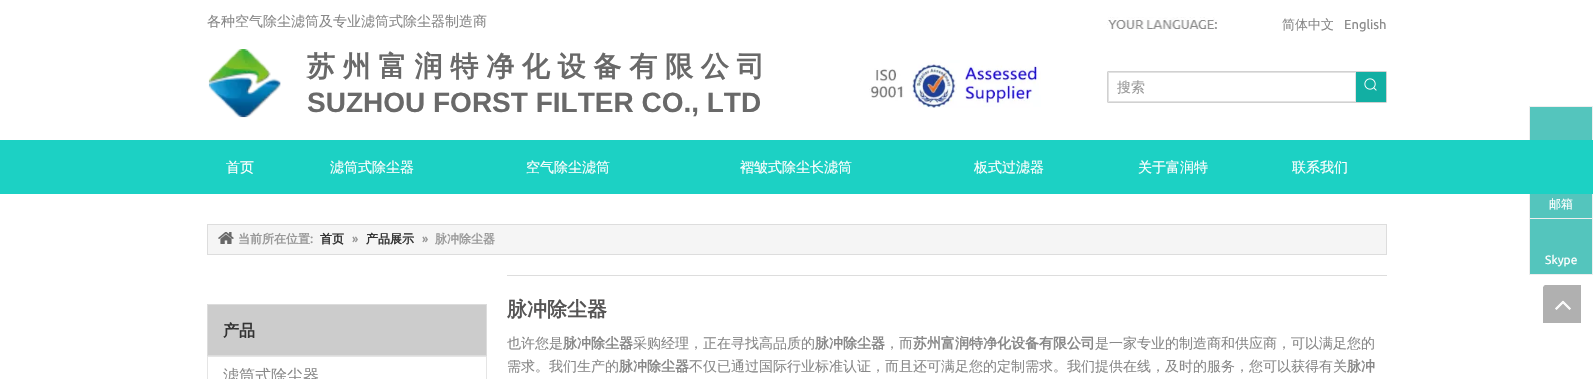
static SkFont makeFont(const char* family, int weight, float size, bool italic = false) {
  SkFontStyle style(weight, SkFontStyle::kNormal_Width,
    italic ? SkFontStyle::kItalic_Slant : SkFontStyle::kUpright_Slant);
  SkFont result(fontMgr->matchFamilyStyle(family, style), size);
  result.setSubpixel(true);
  return result;
}

static void text(SkCanvas* c, const char* s, float x, float y, const SkFont& font, SkColor color) {
  SkPaint ink(SkColor4f::FromColor(color));
  ink.setAntiAlias(true);
  c->drawString(s, x, y, font, ink);
}

static void spacedText(SkCanvas* c, const char* s, float x, float y, const SkFont& font, const SkPaint& ink, float letter, float word) {
  std::vector<SkGlyphID> glyphs(font.countText(s, strlen(s), SkTextEncoding::kUTF8));
  std::vector<float> xs(glyphs.size());
  font.textToGlyphs(s, strlen(s), SkTextEncoding::kUTF8, glyphs);
  font.getXPos(glyphs, xs, x);
  float extra = 0;
  for (size_t i = 0; i < glyphs.size(); i++) {
    xs[i] += extra;
    extra += letter + word * (glyphs[i] == font.unicharToGlyph(' '));
  }
  c->drawTextBlob(SkTextBlob::MakeFromPosHGlyphs(glyphs, xs, y, font), 0, 0, ink);
}

static void box(SkCanvas* c, float l, float t, float r, float b, SkColor color) {
  SkPaint ink(SkColor4f::FromColor(color));
  ink.setAntiAlias(true);
  c->drawRect(SkRect::MakeLTRB(l, t, r, b), ink);
}

static void picture(SkCanvas* c, const char* path, float l, float t, float r, float b) {
  auto image = SkImages::DeferredFromEncodedData(SkData::MakeFromFileName(path));
  c->drawImageRect(image, SkRect::MakeLTRB(l, t, r, b), SkSamplingOptions());
}

void draw(SkCanvas* c) {
  SkPaint paint;
  paint.setAntiAlias(true);
  c->clear(0xffffffff);
  SkFont face1 = makeFont("WenQuanYi Zen Hei", 500, 14);
  text(c, "各种空气除尘滤筒及专业滤筒式除尘器制造商", 207, 26, face1, 0xff888888);
  picture(c, "img_01.png", 1107, 17, 1218, 29);
  SkFont face2 = makeFont("WenQuanYi Zen Hei", 500, 13);
  text(c, "简体中文", 1282, 29, face2, 0xff888888);
  SkFont face3 = makeFont("Ubuntu", 400, 13);
  text(c, "English", 1344, 29, face3, 0xff888888);
  picture(c, "img_02.png", 208, 49, 281, 118);
  SkFont face4 = makeFont("WenQuanYi Zen Hei", 700, 28);
  paint.setColor(0xff696969);
  spacedText(c, "苏 州 富 润 特 净 化 设 备 有 限 公 司", 307, 76, face4, paint, 0, -0.6f);
  SkFont face5 = makeFont("Liberation Sans", 700, 28);
  text(c, "SUZHOU FORST FILTER CO., LTD", 307, 112, face5, 0xff696969);
  picture(c, "img_03.png", 869, 60, 1041, 108);
  paint.setStyle(SkPaint::kStroke_Style);
  paint.setStrokeWidth(1);
  paint.setColor(0xffd1d1d1);
  c->drawRoundRect(SkRect::MakeLTRB(1107.5f, 71.5f, 1386.5f, 102.5f), 0.5f, 0.5f, paint);
  paint.setColor(0xffe2e2e2);
  c->drawRect(SkRect::MakeLTRB(1108.5f, 72.5f, 1355.5f, 101.5f), paint);
  text(c, "搜索", 1117, 92, face1, 0xff999999);
  box(c, 1356, 72, 1386, 102, 0xff12afa3);
  picture(c, "img_04.png", 1364, 78, 1377, 91);
  box(c, 0, 140, 1593, 194, 0xff1cd1c4);
  text(c, "首页", 226, 172, face1, 0xffffffff);
  text(c, "滤筒式除尘器", 330, 172, face1, 0xffffffff);
  text(c, "空气除尘滤筒", 526, 172, face1, 0xffffffff);
  text(c, "褶皱式除尘长滤筒", 740, 172, face1, 0xffffffff);
  text(c, "板式过滤器", 974, 172, face1, 0xffffffff);
  text(c, "关于富润特", 1138, 172, face1, 0xffffffff);
  text(c, "联系我们", 1292, 172, face1, 0xffffffff);
  paint.setStyle(SkPaint::kFill_Style);
  paint.setColor(0xfff5f5f5);
  c->drawRect(SkRect::MakeLTRB(207.5f, 224.5f, 1386.5f, 254.5f), paint);
  paint.setStyle(SkPaint::kStroke_Style);
  paint.setColor(0xffdddddd);
  c->drawRect(SkRect::MakeLTRB(207.5f, 224.5f, 1386.5f, 254.5f), paint);
  picture(c, "img_05.png", 218, 232, 234, 244);
  SkFont face6 = makeFont("WenQuanYi Zen Hei", 700, 12);
  text(c, "当前所在位置", 238, 243, face6, 0xff999999);
  SkFont face7 = makeFont("Ubuntu", 700, 12);
  text(c, ":", 310, 243, face7, 0xff999999);
  text(c, "首页", 320, 243, face6, 0xff333333);
  text(c, "»", 352, 243, face7, 0xff999999);
  text(c, "产品展示", 366, 243, face6, 0xff333333);
  text(c, "»", 422, 243, face7, 0xff999999);
  text(c, "脉冲除尘器", 435, 243, face6, 0xff999999);
  paint.setStyle(SkPaint::kFill_Style);
  paint.setColor(0xffcccccc);
  c->drawRect(SkRect::MakeLTRB(207.5f, 304.5f, 486.5f, 355.5f), paint);
  paint.setStyle(SkPaint::kStroke_Style);
  paint.setColor(0xffdcdcdc);
  c->drawRect(SkRect::MakeLTRB(207.5f, 304.5f, 486.5f, 355.5f), paint);
  SkFont face8 = makeFont("WenQuanYi Zen Hei", 700, 16);
  text(c, "产品", 223, 336, face8, 0xff333333);
  paint.setColor(0xffe5e5e5);
  c->drawRect(SkRect::MakeLTRB(207.5f, 356.5f, 486.5f, 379.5f), paint);
  SkFont face9 = makeFont("WenQuanYi Zen Hei", 500, 16);
  text(c, "滤筒式除尘器", 223, 381, face9, 0xff888888);
  box(c, 507, 275, 1387, 276, 0xffdddddd);
  SkFont face10 = makeFont("WenQuanYi Zen Hei", 700, 20);
  text(c, "脉冲除尘器", 507, 316, face10, 0xff555454);
  text(c, "也许您是", 507, 348, face1, 0xff888888);
  SkFont face11 = makeFont("WenQuanYi Zen Hei", 700, 14);
  text(c, "脉冲除尘器", 563, 348, face11, 0xff888888);
  text(c, "采购经理，正在寻找高品质的", 633, 348, face1, 0xff888888);
  text(c, "脉冲除尘器", 815, 348, face11, 0xff888888);
  text(c, "，而", 885, 348, face1, 0xff888888);
  text(c, "苏州富润特净化设备有限公司", 913, 348, face11, 0xff888888);
  text(c, "是一家专业的制造商和供应商，可以满足您的", 1095, 348, face1, 0xff888888);
  text(c, "需求。我们生产的", 507, 371, face1, 0xff888888);
  text(c, "脉冲除尘器", 619, 371, face11, 0xff888888);
  text(c, "不仅已通过国际行业标准认证，而且还可满足您的定制需求。我们提供在线，及时的服务，您可以获得有关", 689, 371, face1, 0xff888888);
  text(c, "脉冲", 1347, 371, face11, 0xff888888);
  box(c, 1530, 107, 1592, 140, 0xff54c5bd);
  box(c, 1529, 106, 1593, 107, 0xffeeeeee);
  box(c, 1592, 106, 1593, 140, 0xffeeeeee);
  box(c, 1529, 106, 1530, 140, 0xffeeeeee);
  box(c, 1530, 194, 1592, 218, 0xff54c5bd);
  box(c, 1592, 194, 1593, 218, 0xffeeeeee);
  box(c, 1529, 194, 1530, 218, 0xffeeeeee);
  SkFont face12 = makeFont("WenQuanYi Zen Hei", 500, 12);
  text(c, "邮箱", 1549, 208, face12, 0xffffffff);
  paint.setStyle(SkPaint::kFill_Style);
  paint.setColor(0xff54c5bd);
  c->drawRect(SkRect::MakeLTRB(1529.5f, 218.5f, 1592.5f, 274.5f), paint);
  paint.setStyle(SkPaint::kStroke_Style);
  paint.setColor(0xffeeeeee);
  c->drawRect(SkRect::MakeLTRB(1529.5f, 218.5f, 1592.5f, 274.5f), paint);
  SkFont face13 = makeFont("Ubuntu", 400, 12);
  text(c, "Skype", 1545, 264, face13, 0xffffffff);
  picture(c, "img_06.png", 1543, 285, 1581, 323);
}
